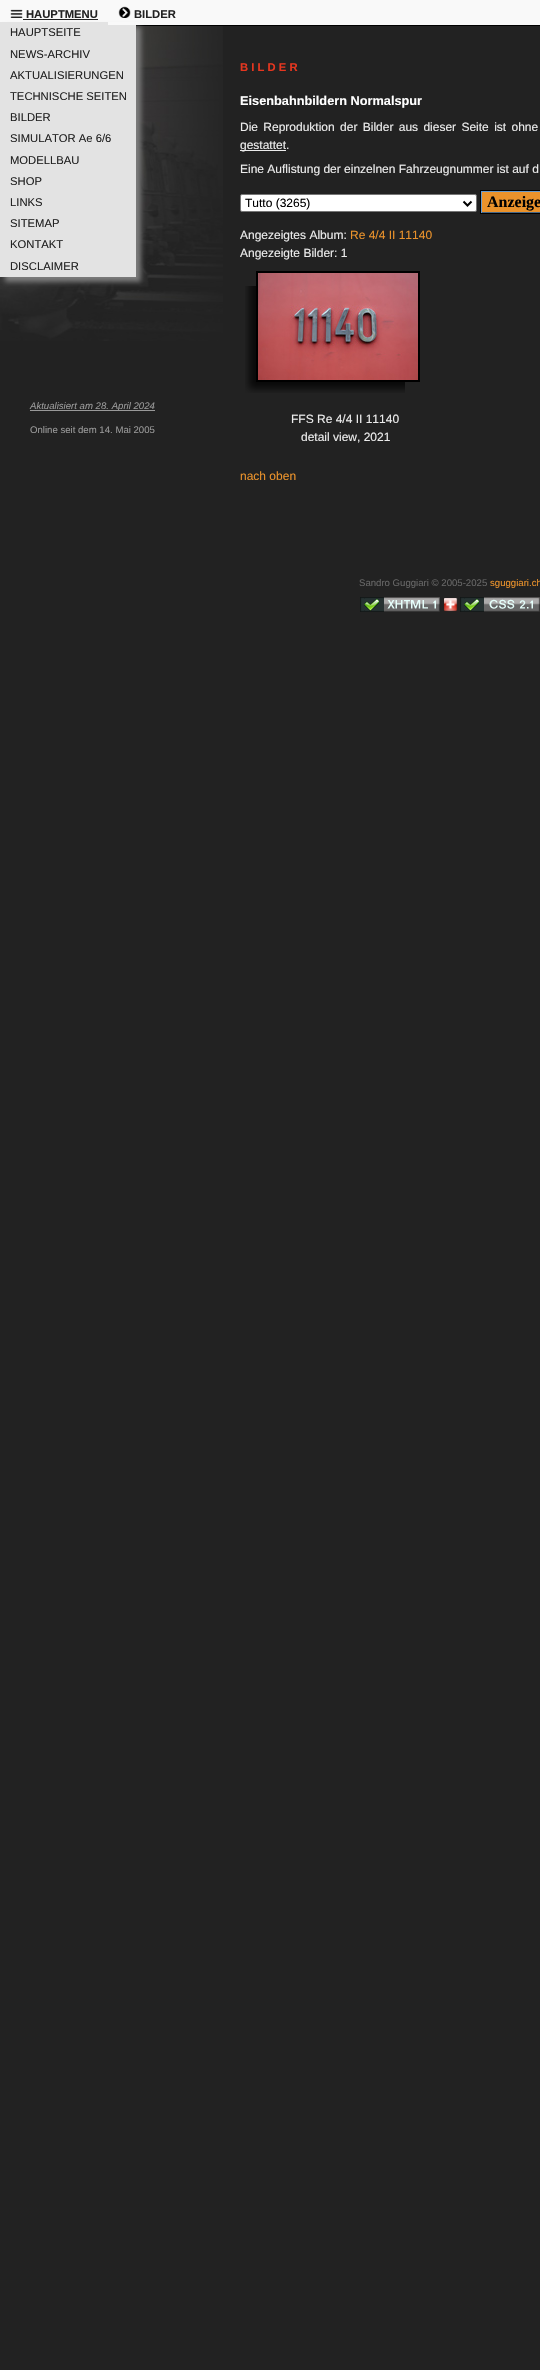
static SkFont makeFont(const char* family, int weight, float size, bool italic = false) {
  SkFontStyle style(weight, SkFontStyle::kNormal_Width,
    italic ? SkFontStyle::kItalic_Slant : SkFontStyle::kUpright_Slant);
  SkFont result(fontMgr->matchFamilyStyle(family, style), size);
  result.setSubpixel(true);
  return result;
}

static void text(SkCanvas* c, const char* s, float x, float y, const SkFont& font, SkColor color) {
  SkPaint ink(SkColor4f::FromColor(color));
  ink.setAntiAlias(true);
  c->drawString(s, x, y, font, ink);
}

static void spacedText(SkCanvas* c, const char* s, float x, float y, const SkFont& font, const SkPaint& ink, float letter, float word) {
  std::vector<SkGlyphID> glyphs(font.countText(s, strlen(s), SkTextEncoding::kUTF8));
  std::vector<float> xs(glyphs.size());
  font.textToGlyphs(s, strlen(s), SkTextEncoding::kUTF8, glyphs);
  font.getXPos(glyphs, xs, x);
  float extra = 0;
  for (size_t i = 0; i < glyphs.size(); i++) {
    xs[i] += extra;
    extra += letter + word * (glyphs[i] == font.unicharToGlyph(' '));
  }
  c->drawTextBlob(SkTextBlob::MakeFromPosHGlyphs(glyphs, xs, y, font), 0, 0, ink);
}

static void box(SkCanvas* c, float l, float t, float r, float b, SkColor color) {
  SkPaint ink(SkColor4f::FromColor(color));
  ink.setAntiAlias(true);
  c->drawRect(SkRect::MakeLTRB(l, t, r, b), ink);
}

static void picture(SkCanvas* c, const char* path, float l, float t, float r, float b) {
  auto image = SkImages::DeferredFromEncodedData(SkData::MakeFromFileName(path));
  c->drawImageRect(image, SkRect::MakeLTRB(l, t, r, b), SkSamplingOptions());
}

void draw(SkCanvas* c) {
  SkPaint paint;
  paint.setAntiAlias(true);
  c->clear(0xff222222);
  box(c, 0, 0, 540, 25, 0xfff9f9f9);
  box(c, 136, 25, 540, 26, 0xff000000);
  picture(c, "img_01.png", 10, 9, 23, 18);
  SkFont face1 = makeFont("Liberation Sans", 700, 11.25f);
  text(c, "HAUPTMENU", 26, 18, face1, 0xff222222);
  box(c, 23, 19, 98, 20, 0xff222222);
  picture(c, "img_03.png", 0, 26, 223, 341);
  paint.setColor(0xff7c7c7c);
  paint.setMaskFilter(SkMaskFilter::MakeBlur(kNormal_SkBlurStyle, 2.5f));
  c->drawRect(SkRect::MakeLTRB(5, 27, 141, 282), paint);
  paint.setMaskFilter(nullptr);
  box(c, 0, 22, 136, 277, 0xffe3e3e3);
  SkFont face2 = makeFont("Liberation Sans", 400, 11.25f);
  text(c, "HAUPTSEITE", 10, 36, face2, 0xff222222);
  text(c, "NEWS-ARCHIV", 10, 58, face2, 0xff222222);
  text(c, "AKTUALISIERUNGEN", 10, 79, face2, 0xff222222);
  text(c, "TECHNISCHE SEITEN", 10, 100, face2, 0xff222222);
  text(c, "BILDER", 10, 121, face2, 0xff222222);
  text(c, "SIMULATOR Ae 6/6", 10, 142, face2, 0xff222222);
  text(c, "MODELLBAU", 10, 164, face2, 0xff222222);
  text(c, "SHOP", 10, 185, face2, 0xff222222);
  text(c, "LINKS", 10, 206, face2, 0xff222222);
  text(c, "SITEMAP", 10, 227, face2, 0xff222222);
  text(c, "KONTAKT", 10, 248, face2, 0xff222222);
  text(c, "DISCLAIMER", 10, 270, face2, 0xff222222);
  box(c, 108, 22, 144, 25, 0xfff9f9f9);
  picture(c, "img_02.png", 118, 6, 131, 18);
  text(c, "BILDER", 134, 18, face1, 0xff222222);
  box(c, 30, 410, 155, 411, 0xff999999);
  SkFont face3 = makeFont("Liberation Sans", 400, 9.6f, true);
  text(c, "Aktualisiert am 28. April 2024", 30, 409, face3, 0xff999999);
  SkFont face4 = makeFont("Liberation Sans", 400, 9.6f);
  text(c, "Online seit dem 14. Mai 2005", 30, 433, face4, 0xff999999);
  text(c, "B I L D E R", 240, 71, face1, 0xffe6361f);
  SkFont face5 = makeFont("Liberation Sans", 700, 12.75f);
  text(c, "Eisenbahnbildern Normalspur", 240, 105, face5, 0xffffffff);
  SkFont face6 = makeFont("Liberation Sans", 400, 12);
  paint.setColor(0xffececec);
  spacedText(c, "Die Reproduktion der Bilder aus dieser Seite ist ohne", 240, 131, face6, paint, 0, 2);
  box(c, 240, 150, 286, 151, 0xffececec);
  text(c, "gestattet.", 240, 149, face6, 0xffececec);
  text(c, "Eine Auflistung der einzelnen Fahrzeugnummer ist auf d", 240, 173, face6, 0xffececec);
  paint.setColor(0xffffffff);
  c->drawRoundRect(SkRect::MakeLTRB(240.5f, 194.5f, 476.5f, 211.5f), 1.5f, 1.5f, paint);
  paint.setStyle(SkPaint::kStroke_Style);
  paint.setStrokeWidth(1);
  paint.setColor(0xff767676);
  c->drawRoundRect(SkRect::MakeLTRB(240.5f, 194.5f, 476.5f, 211.5f), 1.5f, 1.5f, paint);
  paint.setStrokeWidth(2);
  paint.setColor(0xff000000);
  c->drawPath(SkPathBuilder().moveTo(463.5f, 201.5f).lineTo(467.5f, 205.5f).lineTo(471.5f, 201.5f).detach(), paint);
  text(c, "Tutto (3265)", 245, 207, face6, 0xff000000);
  box(c, 482, 192, 540, 212, 0xffea922b);
  box(c, 481, 191, 540, 192, 0xff6699cc);
  box(c, 481, 212, 540, 213, 0xff446688);
  box(c, 481, 191, 482, 213, 0xff6699cc);
  paint.setStrokeWidth(1);
  c->drawRect(SkRect::MakeLTRB(480.5f, 190.5f, 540.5f, 213.5f), paint);
  SkFont face7 = makeFont("Liberation Serif", 700, 16);
  text(c, "Anzeige", 487, 207, face7, 0xff000000);
  text(c, "Angezeigtes Album:", 240, 239, face6, 0xffececec);
  text(c, "Re 4/4 II 11140", 350, 239, face6, 0xffea922b);
  text(c, "Angezeigte Bilder: 1", 240, 257, face6, 0xffececec);
  picture(c, "img_04.png", 245, 286, 405, 393);
  paint.setStrokeWidth(2);
  c->drawRect(SkRect::MakeLTRB(257, 272, 419, 381), paint);
  picture(c, "img_05.png", 258, 273, 418, 380);
  text(c, "FFS Re 4/4 II 11140", 291, 423, face6, 0xffececec);
  text(c, "detail view, 2021", 301, 441, face6, 0xffececec);
  text(c, "nach oben", 240, 480, face6, 0xffea922b);
  text(c, "Sandro Guggiari © 2005-2025", 359, 586, face4, 0xff666666);
  text(c, "sguggiari.ch", 490, 586, face4, 0xffea922b);
  picture(c, "img_06.png", 360, 597, 440, 612);
  picture(c, "img_07.png", 443, 598, 458, 612);
  picture(c, "img_08.png", 460, 597, 540, 612);
}
